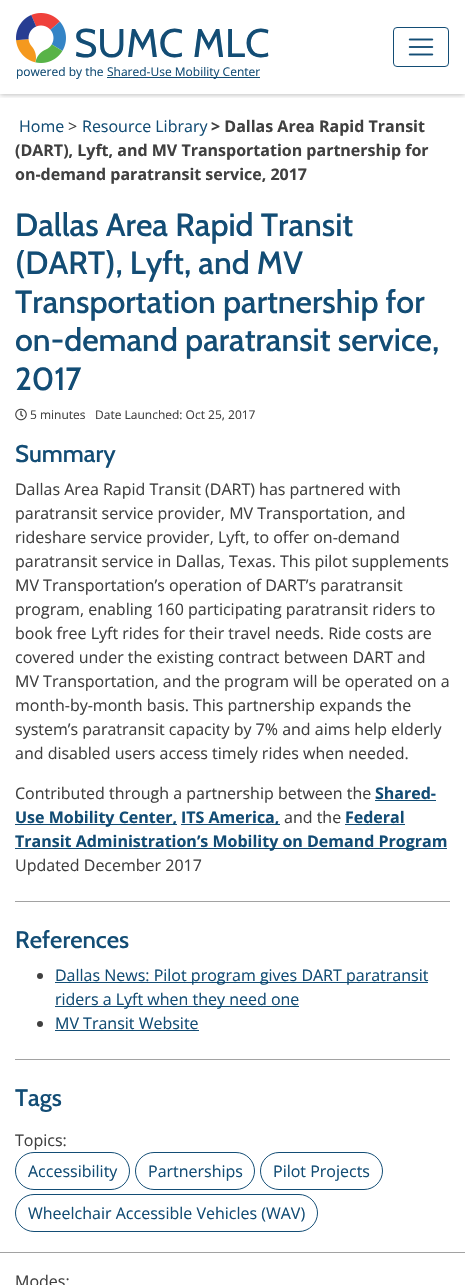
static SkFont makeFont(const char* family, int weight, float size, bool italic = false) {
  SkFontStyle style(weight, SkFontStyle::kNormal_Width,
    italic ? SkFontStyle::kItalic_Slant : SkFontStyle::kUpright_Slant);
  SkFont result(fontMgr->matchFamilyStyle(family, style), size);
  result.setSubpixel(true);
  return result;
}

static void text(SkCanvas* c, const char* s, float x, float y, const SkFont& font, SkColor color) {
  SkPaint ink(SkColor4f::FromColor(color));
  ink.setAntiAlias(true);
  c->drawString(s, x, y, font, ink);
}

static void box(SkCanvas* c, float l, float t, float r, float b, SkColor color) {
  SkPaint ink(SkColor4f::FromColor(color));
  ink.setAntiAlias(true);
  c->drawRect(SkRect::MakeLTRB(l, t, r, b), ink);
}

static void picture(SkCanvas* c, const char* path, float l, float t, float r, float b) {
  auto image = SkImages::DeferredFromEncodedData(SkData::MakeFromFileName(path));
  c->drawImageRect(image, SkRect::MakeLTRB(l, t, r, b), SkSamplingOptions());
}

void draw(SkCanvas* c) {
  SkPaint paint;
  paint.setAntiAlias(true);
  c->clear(0xffffffff);
  c->save();
  c->clipRect(SkRect::MakeLTRB(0, 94, 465, 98));
  paint.setColor(0x40000000);
  paint.setMaskFilter(SkMaskFilter::MakeBlur(kNormal_SkBlurStyle, 2.5f));
  c->drawRect(SkRect::MakeLTRB(0, 1, 465, 95), paint);
  paint.setMaskFilter(nullptr);
  c->restore();
  picture(c, "img_01.png", 16, 13, 66, 63);
  SkFont face1 = makeFont("Cabin", 400, 40);
  text(c, "SUMC MLC", 74, 57, face1, 0xff134d75);
  SkFont face2 = makeFont("Open Sans", 400, 12);
  text(c, "powered by the", 16, 76, face2, 0xff134d75);
  box(c, 107, 77, 260, 78, 0xff134d75);
  text(c, "Shared-Use Mobility Center", 107, 76, face2, 0xff134d75);
  paint.setStyle(SkPaint::kStroke_Style);
  paint.setStrokeWidth(1);
  paint.setColor(0xff134d75);
  c->drawRoundRect(SkRect::MakeLTRB(393.5f, 27.5f, 448.5f, 66.5f), 3.5f, 3.5f, paint);
  picture(c, "img_02.png", 408, 38, 434, 56);
  SkFont face3 = makeFont("Open Sans", 400, 16);
  text(c, "Home", 19, 132, face3, 0xff134d75);
  text(c, ">", 68, 132, face3, 0xff404040);
  text(c, "Resource Library", 82, 132, face3, 0xff134d75);
  SkFont face4 = makeFont("Open Sans", 700, 16);
  text(c, "> Dallas Area Rapid Transit", 211, 132, face4, 0xff404040);
  text(c, "(DART), Lyft, and MV Transportation partnership for", 15, 156, face4, 0xff404040);
  text(c, "on-demand paratransit service, 2017", 15, 180, face4, 0xff404040);
  SkFont face5 = makeFont("Cabin", 500, 32);
  text(c, "Dallas Area Rapid Transit", 15, 236, face5, 0xff134d75);
  text(c, "(DART), Lyft, and MV", 15, 274, face5, 0xff134d75);
  text(c, "Transportation partnership for", 15, 313, face5, 0xff134d75);
  text(c, "on-demand paratransit service,", 15, 351, face5, 0xff134d75);
  text(c, "2017", 15, 390, face5, 0xff134d75);
  picture(c, "img_03.png", 15, 408, 27, 421);
  text(c, "5 minutes", 30, 419, face2, 0xff404040);
  text(c, "Date Launched: Oct 25, 2017", 95, 419, face2, 0xff404040);
  box(c, 15, 901, 450, 902, 0xffa2a2a2);
  SkFont face6 = makeFont("Cabin", 500, 24);
  text(c, "Summary", 15, 462, face6, 0xff134d75);
  text(c, "Dallas Area Rapid Transit (DART) has partnered with", 15, 495, face3, 0xff404040);
  text(c, "paratransit service provider, MV Transportation, and", 15, 519, face3, 0xff404040);
  text(c, "rideshare service provider, Lyft, to offer on-demand", 15, 543, face3, 0xff404040);
  text(c, "paratransit service in Dallas, Texas. This pilot supplements", 15, 567, face3, 0xff404040);
  text(c, "MV Transportation’s operation of DART’s paratransit", 15, 591, face3, 0xff404040);
  text(c, "program, enabling 160 participating paratransit riders to", 15, 615, face3, 0xff404040);
  text(c, "book free Lyft rides for their travel needs. Ride costs are", 15, 639, face3, 0xff404040);
  text(c, "covered under the existing contract between DART and", 15, 663, face3, 0xff404040);
  text(c, "MV Transportation, and the program will be operated on a", 15, 687, face3, 0xff404040);
  text(c, "month-by-month basis. This partnership expands the", 15, 711, face3, 0xff404040);
  text(c, "system’s paratransit capacity by 7% and aims help elderly", 15, 735, face3, 0xff404040);
  text(c, "and disabled users access timely rides when needed.", 15, 759, face3, 0xff404040);
  text(c, "Contributed through a partnership between the", 15, 799, face3, 0xff404040);
  text(c, "Shared-", 375, 799, face4, 0xff134d75);
  box(c, 375, 800, 436, 801, 0xff134d75);
  box(c, 15, 824, 177, 825, 0xff134d75);
  text(c, "Use Mobility Center,", 15, 823, face4, 0xff134d75);
  box(c, 181, 824, 280, 825, 0xff134d75);
  text(c, "ITS America,", 181, 823, face4, 0xff134d75);
  text(c, "and the", 284, 823, face3, 0xff404040);
  text(c, "Federal", 345, 823, face4, 0xff134d75);
  box(c, 345, 824, 405, 825, 0xff134d75);
  box(c, 15, 848, 447, 849, 0xff134d75);
  text(c, "Transit Administration’s Mobility on Demand Program", 15, 847, face4, 0xff134d75);
  text(c, "Updated December 2017", 15, 871, face3, 0xff404040);
  box(c, 15, 1059, 450, 1060, 0xffa2a2a2);
  text(c, "References", 15, 948, face6, 0xff134d75);
  paint.setStyle(SkPaint::kFill_Style);
  paint.setColor(0xff404040);
  c->drawCircle(40, 976, 3, paint);
  box(c, 55, 982, 428, 983, 0xff134d75);
  text(c, "Dallas News: Pilot program gives DART paratransit", 55, 981, face3, 0xff134d75);
  box(c, 55, 1006, 299, 1007, 0xff134d75);
  text(c, "riders a Lyft when they need one", 55, 1005, face3, 0xff134d75);
  c->drawCircle(40, 1024, 3, paint);
  text(c, "MV Transit Website", 55, 1029, face3, 0xff134d75);
  box(c, 55, 1030, 199, 1031, 0xff134d75);
  text(c, "Tags", 15, 1106, face6, 0xff134d75);
  text(c, "Topics:", 15, 1146, face3, 0xff404040);
  box(c, 0, 1252, 465, 1253, 0xffa2a2a2);
  paint.setStyle(SkPaint::kStroke_Style);
  paint.setColor(0xff134d75);
  c->drawRoundRect(SkRect::MakeLTRB(15.5f, 1152.5f, 129.5f, 1189.5f), 18.5f, 18.5f, paint);
  text(c, "Accessibility", 28, 1177, face3, 0xff134d75);
  c->drawRoundRect(SkRect::MakeLTRB(135.5f, 1152.5f, 254.5f, 1189.5f), 18.5f, 18.5f, paint);
  text(c, "Partnerships", 148, 1177, face3, 0xff134d75);
  c->drawRoundRect(SkRect::MakeLTRB(260.5f, 1152.5f, 382.5f, 1189.5f), 18.5f, 18.5f, paint);
  text(c, "Pilot Projects", 273, 1177, face3, 0xff134d75);
  c->drawRoundRect(SkRect::MakeLTRB(15.5f, 1194.5f, 317.5f, 1231.5f), 18.5f, 18.5f, paint);
  text(c, "Wheelchair Accessible Vehicles (WAV)", 28, 1219, face3, 0xff134d75);
  text(c, "Modes:", 15, 1287, face3, 0xff404040);
}
